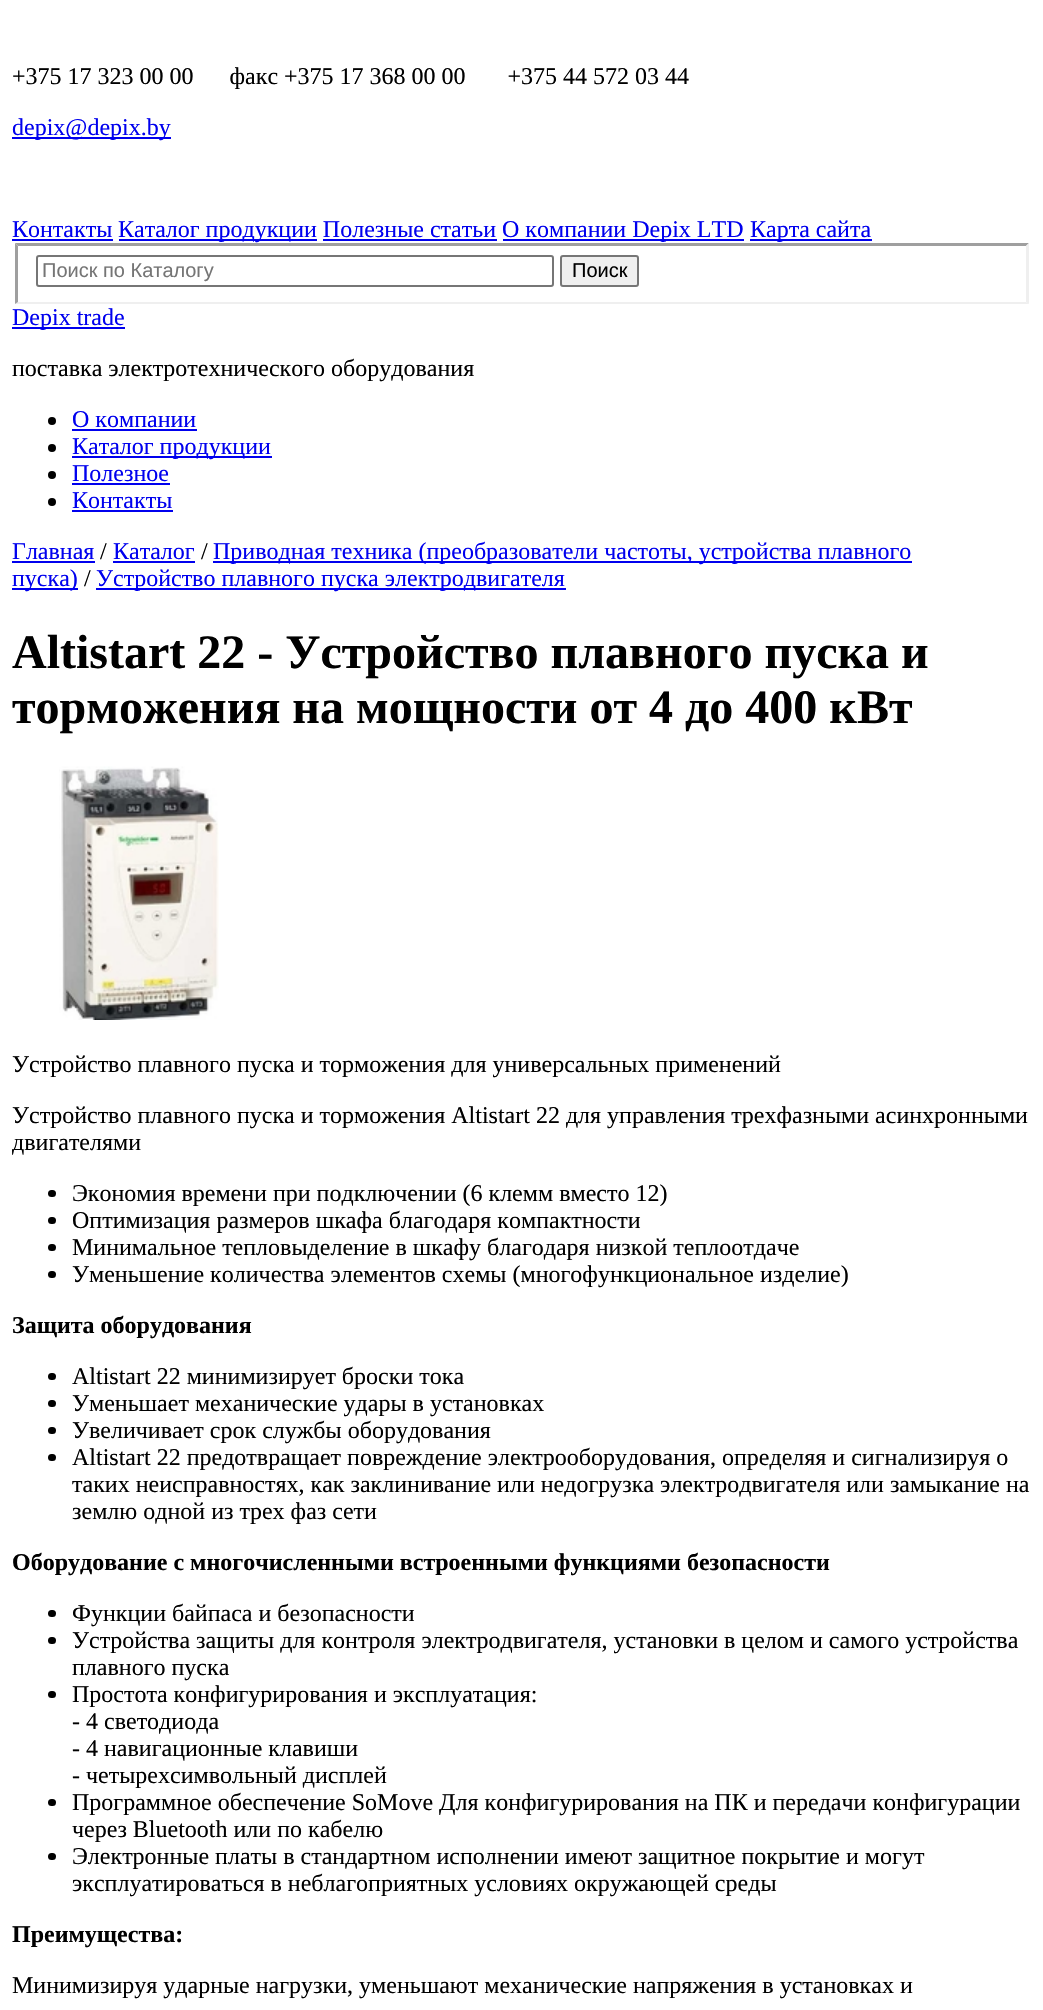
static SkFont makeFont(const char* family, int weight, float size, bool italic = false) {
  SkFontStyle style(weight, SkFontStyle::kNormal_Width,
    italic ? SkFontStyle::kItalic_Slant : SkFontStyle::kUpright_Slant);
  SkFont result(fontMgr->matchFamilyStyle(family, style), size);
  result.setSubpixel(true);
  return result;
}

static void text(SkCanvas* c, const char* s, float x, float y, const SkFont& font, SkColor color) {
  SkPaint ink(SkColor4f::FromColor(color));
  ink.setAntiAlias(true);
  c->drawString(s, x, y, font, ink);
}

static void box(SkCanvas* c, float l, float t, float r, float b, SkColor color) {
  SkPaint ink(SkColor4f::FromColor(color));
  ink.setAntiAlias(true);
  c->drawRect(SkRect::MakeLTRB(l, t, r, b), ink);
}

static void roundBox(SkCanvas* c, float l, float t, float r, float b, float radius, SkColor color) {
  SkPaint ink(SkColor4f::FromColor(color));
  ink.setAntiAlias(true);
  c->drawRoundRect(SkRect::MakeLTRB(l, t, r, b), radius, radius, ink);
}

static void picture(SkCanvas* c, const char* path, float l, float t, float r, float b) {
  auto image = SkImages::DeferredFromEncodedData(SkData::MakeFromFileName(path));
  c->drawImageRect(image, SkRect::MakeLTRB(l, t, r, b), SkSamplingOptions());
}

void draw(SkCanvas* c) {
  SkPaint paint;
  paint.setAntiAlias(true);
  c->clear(0xffffffff);
  SkFont face1 = makeFont("Liberation Serif", 400, 24);
  text(c, "+375 17 323 00 00      факс +375 17 368 00 00       +375 44 572 03 44", 12, 84, face1, 0xff000000);
  box(c, 12, 137, 171, 139, 0xff0000ee);
  text(c, "depix@depix.by", 12, 135, face1, 0xff0000ee);
  text(c, "Контакты", 12, 237, face1, 0xff0000ee);
  box(c, 12, 239, 113, 241, 0xff0000ee);
  box(c, 119, 239, 317, 241, 0xff0000ee);
  text(c, "Каталог продукции Полезные статьи", 118, 237, face1, 0xff0000ee);
  box(c, 503, 239, 744, 241, 0xff0000ee);
  text(c, "О компании Depix LTD", 502, 237, face1, 0xff0000ee);
  box(c, 750, 239, 872, 241, 0xff0000ee);
  text(c, "Карта сайта", 750, 237, face1, 0xff0000ee);
  box(c, 323, 239, 497, 241, 0xff0000ee);
  paint.setColor(0xff9f9f9f);
  c->drawPath(SkPathBuilder().moveTo(15, 243).lineTo(1029, 243).lineTo(1026, 246).lineTo(18, 246).close().detach(), paint);
  paint.setColor(0xffefefef);
  c->drawPath(SkPathBuilder().moveTo(1029, 243).lineTo(1029, 304).lineTo(1026, 302).lineTo(1026, 246).close().detach(), paint);
  c->drawPath(SkPathBuilder().moveTo(1029, 304).lineTo(15, 304).lineTo(18, 302).lineTo(1026, 302).close().detach(), paint);
  paint.setColor(0xff9f9f9f);
  c->drawPath(SkPathBuilder().moveTo(15, 304).lineTo(15, 243).lineTo(18, 246).lineTo(18, 302).close().detach(), paint);
  paint.setStyle(SkPaint::kStroke_Style);
  paint.setStrokeWidth(2);
  paint.setColor(0xff767676);
  c->drawRoundRect(SkRect::MakeLTRB(37, 256, 553, 286), 2, 2, paint);
  SkFont face2 = makeFont("Liberation Sans", 400, 20);
  text(c, "Поиск по Каталогу", 42, 277, face2, 0xff757575);
  paint.setStyle(SkPaint::kFill_Style);
  paint.setColor(0xffefefef);
  c->drawRoundRect(SkRect::MakeLTRB(561, 256, 638, 286), 2, 2, paint);
  paint.setStyle(SkPaint::kStroke_Style);
  paint.setColor(0xff767676);
  c->drawRoundRect(SkRect::MakeLTRB(561, 256, 638, 286), 2, 2, paint);
  text(c, "Поиск", 572, 277, face2, 0xff000000);
  box(c, 12, 327, 125, 329, 0xff0000ee);
  text(c, "Depix trade", 12, 325, face1, 0xff0000ee);
  text(c, "поставка электротехнического оборудования", 12, 376, face1, 0xff000000);
  paint.setStyle(SkPaint::kFill_Style);
  paint.setColor(0xff000000);
  c->drawCircle(52, 421, 4, paint);
  text(c, "О компании", 72, 427, face1, 0xff0000ee);
  box(c, 72, 429, 197, 431, 0xff0000ee);
  c->drawCircle(52, 448, 4, paint);
  box(c, 72, 456, 272, 458, 0xff0000ee);
  text(c, "Каталог продукции", 72, 454, face1, 0xff0000ee);
  c->drawCircle(52, 475, 4, paint);
  text(c, "Полезное", 72, 481, face1, 0xff0000ee);
  box(c, 72, 483, 170, 485, 0xff0000ee);
  c->drawCircle(52, 502, 4, paint);
  text(c, "Контакты", 72, 508, face1, 0xff0000ee);
  box(c, 72, 510, 173, 512, 0xff0000ee);
  text(c, "Главная", 12, 559, face1, 0xff0000ee);
  box(c, 12, 561, 95, 563, 0xff0000ee);
  text(c, "/", 100, 559, face1, 0xff000000);
  text(c, "Каталог", 113, 559, face1, 0xff0000ee);
  box(c, 113, 561, 195, 563, 0xff0000ee);
  text(c, "/", 201, 559, face1, 0xff000000);
  box(c, 213, 561, 912, 563, 0xff0000ee);
  text(c, "Приводная техника (преобразователи частоты, устройства плавного", 213, 559, face1, 0xff0000ee);
  box(c, 12, 588, 78, 590, 0xff0000ee);
  text(c, "пуска)", 12, 586, face1, 0xff0000ee);
  text(c, "/", 84, 586, face1, 0xff000000);
  box(c, 96, 588, 566, 590, 0xff0000ee);
  text(c, "Устройство плавного пуска электродвигателя", 96, 586, face1, 0xff0000ee);
  SkFont face3 = makeFont("Liberation Serif", 700, 48);
  text(c, "Altistart 22 - Устройство плавного пуска и", 12, 668, face3, 0xff000000);
  text(c, "торможения на мощности от 4 до 400 кВт", 12, 723, face3, 0xff000000);
  picture(c, "img_01.png", 59, 766, 219, 1020);
  text(c, "Устройство плавного пуска и торможения для универсальных применений", 12, 1072, face1, 0xff000000);
  text(c, "Устройство плавного пуска и торможения Altistart 22 для управления трехфазными асинхронными", 12, 1123, face1, 0xff000000);
  text(c, "двигателями", 12, 1150, face1, 0xff000000);
  roundBox(c, 48, 1190, 56, 1197, 3.5f, 0xff000000);
  text(c, "Экономия времени при подключении (6 клемм вместо 12)", 72, 1201, face1, 0xff000000);
  roundBox(c, 48, 1217, 56, 1224, 3.5f, 0xff000000);
  text(c, "Оптимизация размеров шкафа благодаря компактности", 72, 1228, face1, 0xff000000);
  roundBox(c, 48, 1244, 56, 1251, 3.5f, 0xff000000);
  text(c, "Минимальное тепловыделение в шкафу благодаря низкой теплоотдаче", 72, 1255, face1, 0xff000000);
  roundBox(c, 48, 1271, 56, 1278, 3.5f, 0xff000000);
  text(c, "Уменьшение количества элементов схемы (многофункциональное изделие)", 72, 1282, face1, 0xff000000);
  SkFont face4 = makeFont("Liberation Serif", 700, 24);
  text(c, "Защита оборудования", 12, 1333, face4, 0xff000000);
  roundBox(c, 48, 1373, 56, 1380, 3.5f, 0xff000000);
  text(c, "Altistart 22 минимизирует броски тока", 72, 1384, face1, 0xff000000);
  roundBox(c, 48, 1400, 56, 1407, 3.5f, 0xff000000);
  text(c, "Уменьшает механические удары в установках", 72, 1411, face1, 0xff000000);
  roundBox(c, 48, 1427, 56, 1434, 3.5f, 0xff000000);
  text(c, "Увеличивает срок службы оборудования", 72, 1438, face1, 0xff000000);
  roundBox(c, 48, 1454, 56, 1461, 3.5f, 0xff000000);
  text(c, "Altistart 22 предотвращает повреждение электрооборудования, определяя и сигнализируя о", 72, 1465, face1, 0xff000000);
  text(c, "таких неисправностях, как заклинивание или недогрузка электродвигателя или замыкание на", 72, 1492, face1, 0xff000000);
  text(c, "землю одной из трех фаз сети", 72, 1519, face1, 0xff000000);
  text(c, "Оборудование с многочисленными встроенными функциями безопасности", 12, 1570, face4, 0xff000000);
  roundBox(c, 48, 1610, 56, 1617, 3.5f, 0xff000000);
  text(c, "Функции байпаса и безопасности", 72, 1621, face1, 0xff000000);
  roundBox(c, 48, 1637, 56, 1644, 3.5f, 0xff000000);
  text(c, "Устройства защиты для контроля электродвигателя, установки в целом и самого устройства", 72, 1648, face1, 0xff000000);
  text(c, "плавного пуска", 72, 1675, face1, 0xff000000);
  roundBox(c, 48, 1691, 56, 1698, 3.5f, 0xff000000);
  text(c, "Простота конфигурирования и эксплуатация:", 72, 1702, face1, 0xff000000);
  text(c, "- 4 светодиода", 72, 1729, face1, 0xff000000);
  text(c, "- 4 навигационные клавиши", 72, 1756, face1, 0xff000000);
  text(c, "- четырехсимвольный дисплей", 72, 1783, face1, 0xff000000);
  roundBox(c, 48, 1799, 56, 1806, 3.5f, 0xff000000);
  text(c, "Программное обеспечение SoMove Для конфигурирования на ПК и передачи конфигурации", 72, 1810, face1, 0xff000000);
  text(c, "через Bluetooth или по кабелю", 72, 1837, face1, 0xff000000);
  roundBox(c, 48, 1853, 56, 1860, 3.5f, 0xff000000);
  text(c, "Электронные платы в стандартном исполнении имеют защитное покрытие и могут", 72, 1864, face1, 0xff000000);
  text(c, "эксплуатироваться в неблагоприятных условиях окружающей среды", 72, 1891, face1, 0xff000000);
  text(c, "Преимущества:", 12, 1942, face4, 0xff000000);
  text(c, "Минимизируя ударные нагрузки, уменьшают механические напряжения в установках и", 12, 1993, face1, 0xff000000);
}
